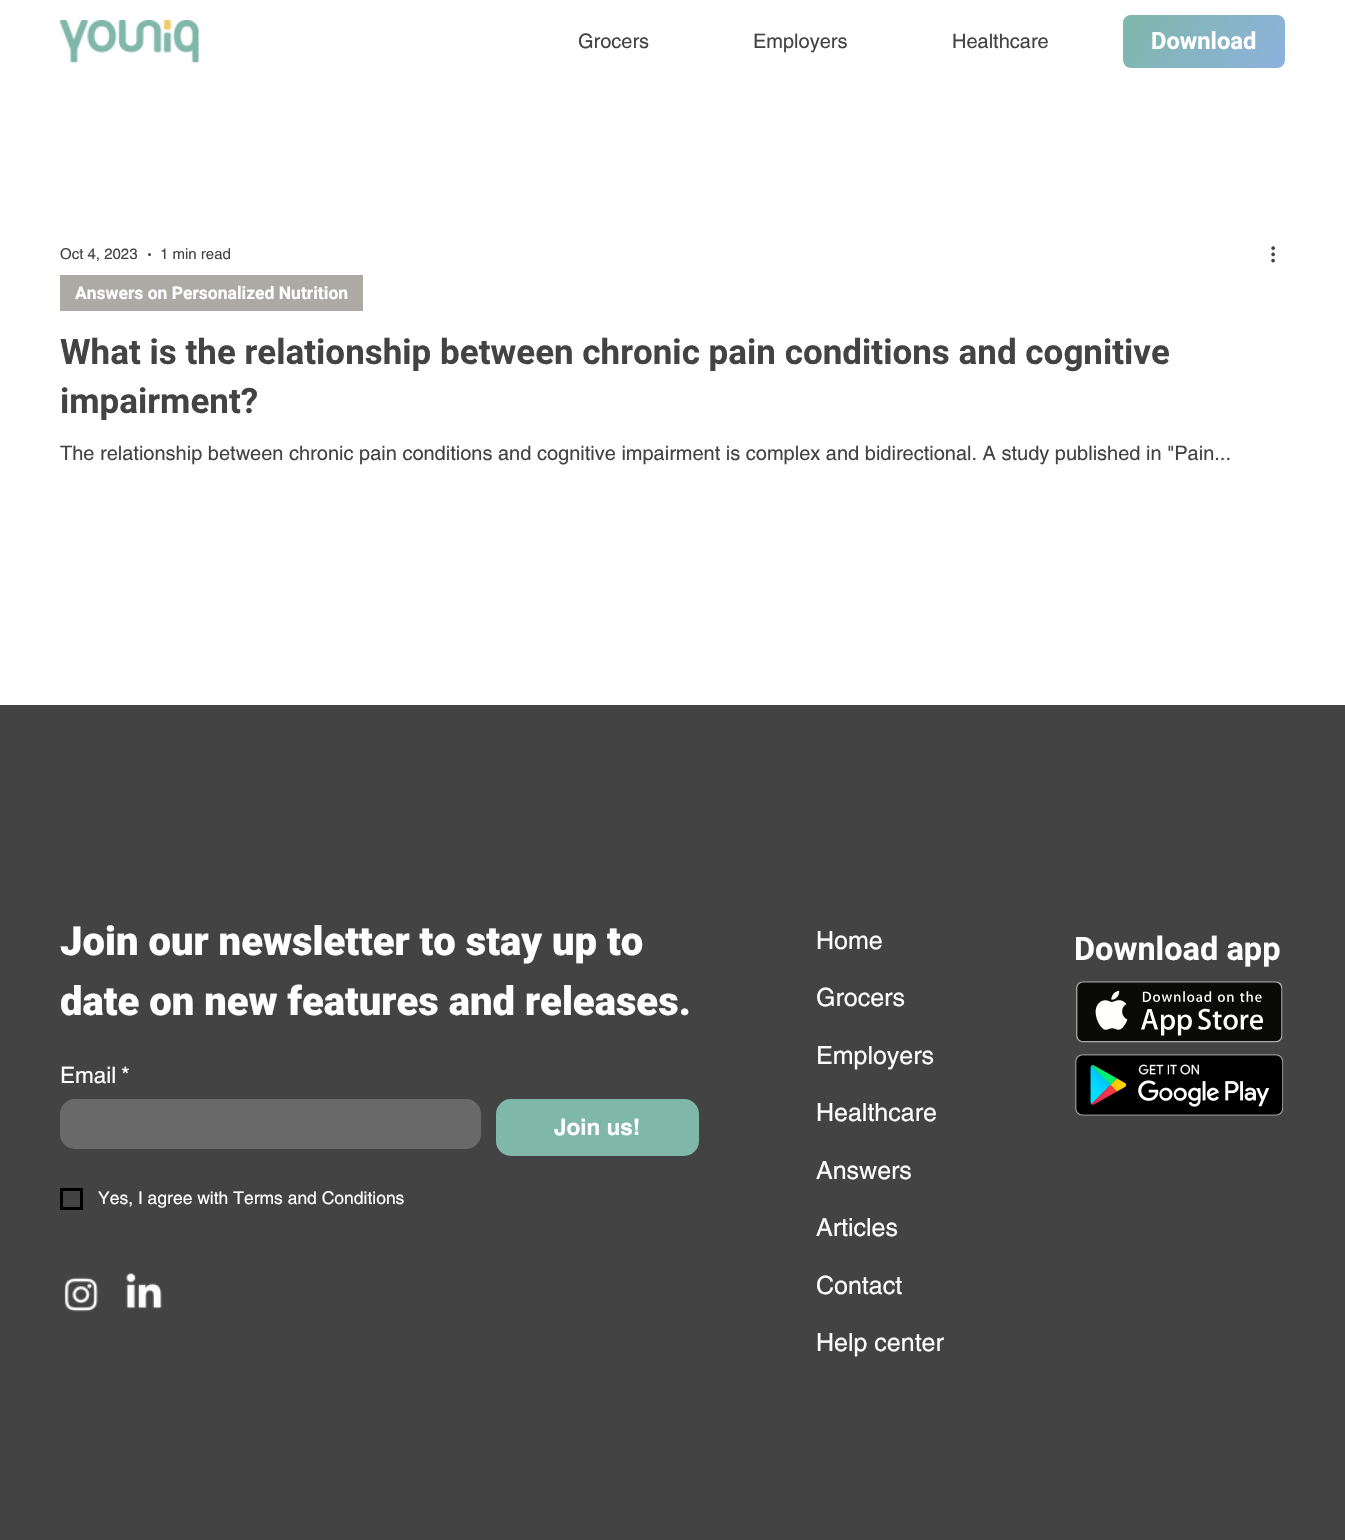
static SkFont makeFont(const char* family, int weight, float size, bool italic = false) {
  SkFontStyle style(weight, SkFontStyle::kNormal_Width,
    italic ? SkFontStyle::kItalic_Slant : SkFontStyle::kUpright_Slant);
  SkFont result(fontMgr->matchFamilyStyle(family, style), size);
  result.setSubpixel(true);
  return result;
}

static void text(SkCanvas* c, const char* s, float x, float y, const SkFont& font, SkColor color) {
  SkPaint ink(SkColor4f::FromColor(color));
  ink.setAntiAlias(true);
  c->drawString(s, x, y, font, ink);
}

static void box(SkCanvas* c, float l, float t, float r, float b, SkColor color) {
  SkPaint ink(SkColor4f::FromColor(color));
  ink.setAntiAlias(true);
  c->drawRect(SkRect::MakeLTRB(l, t, r, b), ink);
}

static void roundBox(SkCanvas* c, float l, float t, float r, float b, float radius, SkColor color) {
  SkPaint ink(SkColor4f::FromColor(color));
  ink.setAntiAlias(true);
  c->drawRoundRect(SkRect::MakeLTRB(l, t, r, b), radius, radius, ink);
}

static void picture(SkCanvas* c, const char* path, float l, float t, float r, float b) {
  auto image = SkImages::DeferredFromEncodedData(SkData::MakeFromFileName(path));
  c->drawImageRect(image, SkRect::MakeLTRB(l, t, r, b), SkSamplingOptions());
}

void draw(SkCanvas* c) {
  SkPaint paint;
  paint.setAntiAlias(true);
  c->clear(0xffffffff);
  picture(c, "img_01.png", 60, 20, 199, 63);
  SkFont face1 = makeFont("helvetica", 400, 20);
  text(c, "Grocers", 578, 48, face1, 0xff434343);
  text(c, "Employers", 753, 48, face1, 0xff434343);
  text(c, "Healthcare", 952, 48, face1, 0xff434343);
  {
    const SkColor colors[] = {0xff7fb7a9, 0xff8db2dd};
    const float stops[] = {0, 1};
    const SkPoint ends[] = {{1138, -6.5f}, {1269, 89}};
    paint.setShader(SkGradientShader::MakeLinear(ends, colors, stops, 2, SkTileMode::kClamp));
    paint.setAlpha(255);
  }
  c->drawRoundRect(SkRect::MakeLTRB(1123, 15, 1285, 68), 8, 8, paint);
  SkFont face2 = makeFont("Roboto", 700, 23.75f);
  text(c, "Download", 1151, 49, face2, 0xffffffff);
  SkFont face3 = makeFont("helvetica", 400, 15);
  text(c, "Oct 4, 2023", 60, 259, face3, 0xff434343);
  paint.setShader(nullptr);
  paint.setColor(0xff434343);
  c->drawCircle(149.5f, 254.5f, 1.5f, paint);
  text(c, "1 min read", 160, 259, face3, 0xff434343);
  picture(c, "img_02.png", 1271, 246, 1275, 263);
  box(c, 60, 275, 363, 311, 0xffada9a4);
  SkFont face4 = makeFont("Roboto", 700, 17.5f);
  text(c, "Answers on Personalized Nutrition", 75, 299, face4, 0xffffffff);
  SkFont face5 = makeFont("Roboto", 700, 35);
  text(c, "What is the relationship between chronic pain conditions and cognitive", 60, 364, face5, 0xff434343);
  text(c, "impairment?", 60, 413, face5, 0xff434343);
  text(c, "The relationship between chronic pain conditions and cognitive impairment is complex and bidirectional. A study published in \"Pain...", 60, 460, face1, 0xff434343);
  box(c, 0, 705, 1345, 1540, 0xff434343);
  SkFont face6 = makeFont("Roboto", 900, 40);
  text(c, "Join our newsletter to stay up to", 60, 955, face6, 0xffffffff);
  text(c, "date on new features and releases.", 60, 1015, face6, 0xffffffff);
  SkFont face7 = makeFont("helvetica", 400, 22.5f);
  text(c, "Email", 60, 1083, face7, 0xffffffff);
  text(c, "*", 121, 1083, face7, 0xffffffff);
  roundBox(c, 60, 1099, 481, 1149, 15, 0xff696969);
  roundBox(c, 496, 1099, 699, 1156, 15, 0xff7fb7a9);
  SkFont face8 = makeFont("helvetica", 700, 22.5f);
  text(c, "Join us!", 554, 1135, face8, 0xffffffff);
  paint.setStyle(SkPaint::kStroke_Style);
  paint.setStrokeWidth(3);
  paint.setColor(0xff000000);
  c->drawRect(SkRect::MakeLTRB(61.5f, 1189.5f, 81.5f, 1208.5f), paint);
  SkFont face9 = makeFont("helvetica", 400, 17.5f);
  text(c, "Yes, I agree with Terms and Conditions", 98, 1204, face9, 0xffffffff);
  SkFont face10 = makeFont("helvetica", 400, 25);
  text(c, "Home", 816, 949, face10, 0xffffffff);
  text(c, "Grocers", 816, 1006, face10, 0xffffffff);
  text(c, "Employers", 816, 1064, face10, 0xffffffff);
  text(c, "Healthcare", 816, 1121, face10, 0xffffffff);
  text(c, "Answers", 816, 1179, face10, 0xffffffff);
  text(c, "Articles", 816, 1236, face10, 0xffffffff);
  text(c, "Contact", 816, 1294, face10, 0xffffffff);
  text(c, "Help center", 816, 1351, face10, 0xffffffff);
  SkFont face11 = makeFont("Roboto", 700, 32.5f);
  text(c, "Download app", 1074, 960, face11, 0xffffffff);
  picture(c, "img_03.png", 1076, 981, 1283, 1043);
  picture(c, "img_04.png", 1075, 1054, 1284, 1116);
  picture(c, "img_05.png", 64, 1277, 98, 1312);
  picture(c, "img_06.png", 126, 1272, 162, 1309);
}
